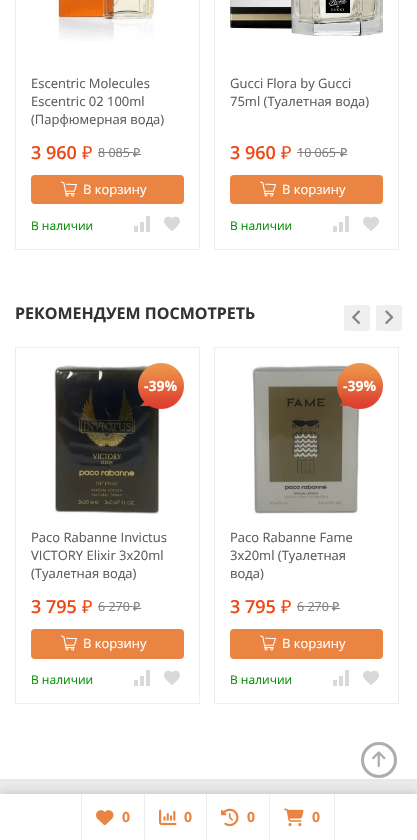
static SkFont makeFont(const char* family, int weight, float size, bool italic = false) {
  SkFontStyle style(weight, SkFontStyle::kNormal_Width,
    italic ? SkFontStyle::kItalic_Slant : SkFontStyle::kUpright_Slant);
  SkFont result(fontMgr->matchFamilyStyle(family, style), size);
  result.setSubpixel(true);
  return result;
}

static void text(SkCanvas* c, const char* s, float x, float y, const SkFont& font, SkColor color) {
  SkPaint ink(SkColor4f::FromColor(color));
  ink.setAntiAlias(true);
  c->drawString(s, x, y, font, ink);
}

static void box(SkCanvas* c, float l, float t, float r, float b, SkColor color) {
  SkPaint ink(SkColor4f::FromColor(color));
  ink.setAntiAlias(true);
  c->drawRect(SkRect::MakeLTRB(l, t, r, b), ink);
}

static void roundBox(SkCanvas* c, float l, float t, float r, float b, float radius, SkColor color) {
  SkPaint ink(SkColor4f::FromColor(color));
  ink.setAntiAlias(true);
  c->drawRoundRect(SkRect::MakeLTRB(l, t, r, b), radius, radius, ink);
}

static void picture(SkCanvas* c, const char* path, float l, float t, float r, float b) {
  auto image = SkImages::DeferredFromEncodedData(SkData::MakeFromFileName(path));
  c->drawImageRect(image, SkRect::MakeLTRB(l, t, r, b), SkSamplingOptions());
}

void draw(SkCanvas* c) {
  SkPaint paint;
  paint.setAntiAlias(true);
  c->clear(0xffffffff);
  paint.setStyle(SkPaint::kStroke_Style);
  paint.setStrokeWidth(1);
  paint.setColor(0xffeeeeee);
  c->drawRect(SkRect::MakeLTRB(15.5f, -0.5f, 199.5f, 249.5f), paint);
  picture(c, "img_01.png", 56, 0, 158, 41);
  SkFont face1 = makeFont("Open Sans", 400, 13);
  text(c, "Escentric Molecules", 31, 88, face1, 0xff5c5c5c);
  text(c, "Escentric 02 100ml", 31, 106, face1, 0xff5c5c5c);
  text(c, "(Парфюмерная вода)", 31, 124, face1, 0xff5c5c5c);
  SkFont face2 = makeFont("Open Sans", 600, 18);
  text(c, "3 960", 31, 159, face2, 0xffef4814);
  SkFont face3 = makeFont("Noto Sans", 400, 18);
  text(c, "₽", 82, 159, face3, 0xffef4814);
  SkFont face4 = makeFont("Open Sans", 400, 12.5f);
  text(c, "8 085", 98, 157, face4, 0xff808080);
  box(c, 98, 152, 133, 153, 0xff808080);
  SkFont face5 = makeFont("Noto Sans", 400, 12.5f);
  text(c, "₽", 133, 157, face5, 0xff808080);
  box(c, 133, 154, 141, 155, 0xff808080);
  roundBox(c, 31, 175, 184, 204, 4, 0xffea8443);
  picture(c, "img_02.png", 61, 181, 77, 197);
  text(c, "В корзину", 83, 194, face1, 0xffffffff);
  picture(c, "img_03.png", 134, 216, 150, 232);
  picture(c, "img_04.png", 164, 216, 180, 231);
  SkFont face6 = makeFont("Open Sans", 400, 12);
  text(c, "В наличии", 31, 230, face6, 0xff049004);
  c->drawRect(SkRect::MakeLTRB(214.5f, -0.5f, 398.5f, 249.5f), paint);
  picture(c, "img_05.png", 230, 0, 383, 36);
  text(c, "Gucci Flora by Gucci", 230, 88, face1, 0xff5c5c5c);
  text(c, "75ml (Туалетная вода)", 230, 106, face1, 0xff5c5c5c);
  text(c, "3 960", 230, 159, face2, 0xffef4814);
  text(c, "₽", 281, 159, face3, 0xffef4814);
  text(c, "10 065", 297, 157, face4, 0xff808080);
  box(c, 297, 152, 340, 153, 0xff808080);
  text(c, "₽", 340, 157, face5, 0xff808080);
  box(c, 340, 154, 347, 155, 0xff808080);
  roundBox(c, 230, 175, 383, 204, 4, 0xffea8443);
  picture(c, "img_02.png", 260, 181, 276, 197);
  text(c, "В корзину", 282, 194, face1, 0xffffffff);
  picture(c, "img_03.png", 333, 216, 349, 232);
  picture(c, "img_04.png", 363, 216, 379, 231);
  text(c, "В наличии", 230, 230, face6, 0xff049004);
  SkFont face7 = makeFont("Open Sans", 700, 16);
  text(c, "РЕКОМЕНДУЕМ ПОСМОТРЕТЬ", 15, 319, face7, 0xff333333);
  roundBox(c, 344, 305, 370, 331, 3, 0xffefefef);
  picture(c, "img_06.png", 352, 310, 360, 324);
  roundBox(c, 376, 305, 402, 331, 3, 0xffefefef);
  picture(c, "img_07.png", 385, 310, 394, 324);
  c->drawRect(SkRect::MakeLTRB(15.5f, 347.5f, 199.5f, 703.5f), paint);
  picture(c, "img_08.png", 53, 364, 161, 515);
  picture(c, "img_09.png", 138, 363, 184, 409);
  SkFont face8 = makeFont("Open Sans", 700, 14);
  text(c, "-39%", 144, 391, face8, 0xffffffff);
  text(c, "Paco Rabanne Invictus", 31, 542, face1, 0xff5c5c5c);
  text(c, "VICTORY Elixir 3х20ml", 31, 560, face1, 0xff5c5c5c);
  text(c, "(Туалетная вода)", 31, 578, face1, 0xff5c5c5c);
  text(c, "3 795", 31, 613, face2, 0xffef4814);
  text(c, "₽", 82, 613, face3, 0xffef4814);
  text(c, "6 270", 98, 611, face4, 0xff808080);
  box(c, 98, 606, 133, 607, 0xff808080);
  text(c, "₽", 133, 611, face5, 0xff808080);
  box(c, 133, 608, 141, 609, 0xff808080);
  roundBox(c, 31, 629, 184, 659, 4, 0xffea8443);
  picture(c, "img_02.png", 61, 635, 77, 651);
  text(c, "В корзину", 83, 648, face1, 0xffffffff);
  picture(c, "img_03.png", 134, 670, 150, 686);
  picture(c, "img_04.png", 164, 670, 180, 685);
  text(c, "В наличии", 31, 684, face6, 0xff049004);
  c->drawRect(SkRect::MakeLTRB(214.5f, 347.5f, 398.5f, 703.5f), paint);
  picture(c, "img_10.png", 251, 364, 361, 515);
  picture(c, "img_11.png", 337, 363, 383, 409);
  text(c, "-39%", 343, 391, face8, 0xffffffff);
  text(c, "Paco Rabanne Fame", 230, 542, face1, 0xff5c5c5c);
  text(c, "3х20ml (Туалетная", 230, 560, face1, 0xff5c5c5c);
  text(c, "вода)", 230, 578, face1, 0xff5c5c5c);
  text(c, "3 795", 230, 613, face2, 0xffef4814);
  text(c, "₽", 281, 613, face3, 0xffef4814);
  text(c, "6 270", 297, 611, face4, 0xff808080);
  box(c, 297, 606, 332, 607, 0xff808080);
  text(c, "₽", 332, 611, face5, 0xff808080);
  box(c, 332, 608, 340, 609, 0xff808080);
  roundBox(c, 230, 629, 383, 659, 4, 0xffea8443);
  picture(c, "img_02.png", 260, 635, 276, 651);
  text(c, "В корзину", 282, 648, face1, 0xffffffff);
  picture(c, "img_03.png", 333, 670, 349, 686);
  picture(c, "img_04.png", 363, 670, 379, 685);
  text(c, "В наличии", 230, 684, face6, 0xff049004);
  box(c, 0, 779, 417, 794, 0xffeaeaea);
  paint.setStrokeWidth(3);
  paint.setColor(0xffadadad);
  c->drawCircle(379, 760, 16.5f, paint);
  picture(c, "img_12.png", 372, 751, 386, 768);
  paint.setStyle(SkPaint::kFill_Style);
  paint.setColor(0x33000000);
  paint.setMaskFilter(SkMaskFilter::MakeBlur(kNormal_SkBlurStyle, 5));
  c->drawRect(SkRect::MakeLTRB(0, 794, 417, 840), paint);
  paint.setMaskFilter(nullptr);
  box(c, 0, 794, 417, 840, 0xffffffff);
  box(c, 81, 794, 82, 840, 0xffeeeeee);
  picture(c, "img_13.png", 96, 810, 114, 826);
  text(c, "0", 122, 822, face8, 0xffea8443);
  box(c, 144, 794, 145, 840, 0xffeeeeee);
  picture(c, "img_14.png", 159, 809, 177, 826);
  text(c, "0", 184, 822, face8, 0xffea8443);
  box(c, 206, 794, 207, 840, 0xffeeeeee);
  picture(c, "img_15.png", 221, 808, 239, 827);
  text(c, "0", 247, 822, face8, 0xffea8443);
  box(c, 334, 794, 335, 840, 0xffeeeeee);
  box(c, 269, 794, 270, 840, 0xffeeeeee);
  picture(c, "img_16.png", 284, 808, 304, 827);
  text(c, "0", 312, 822, face8, 0xffea8443);
}
